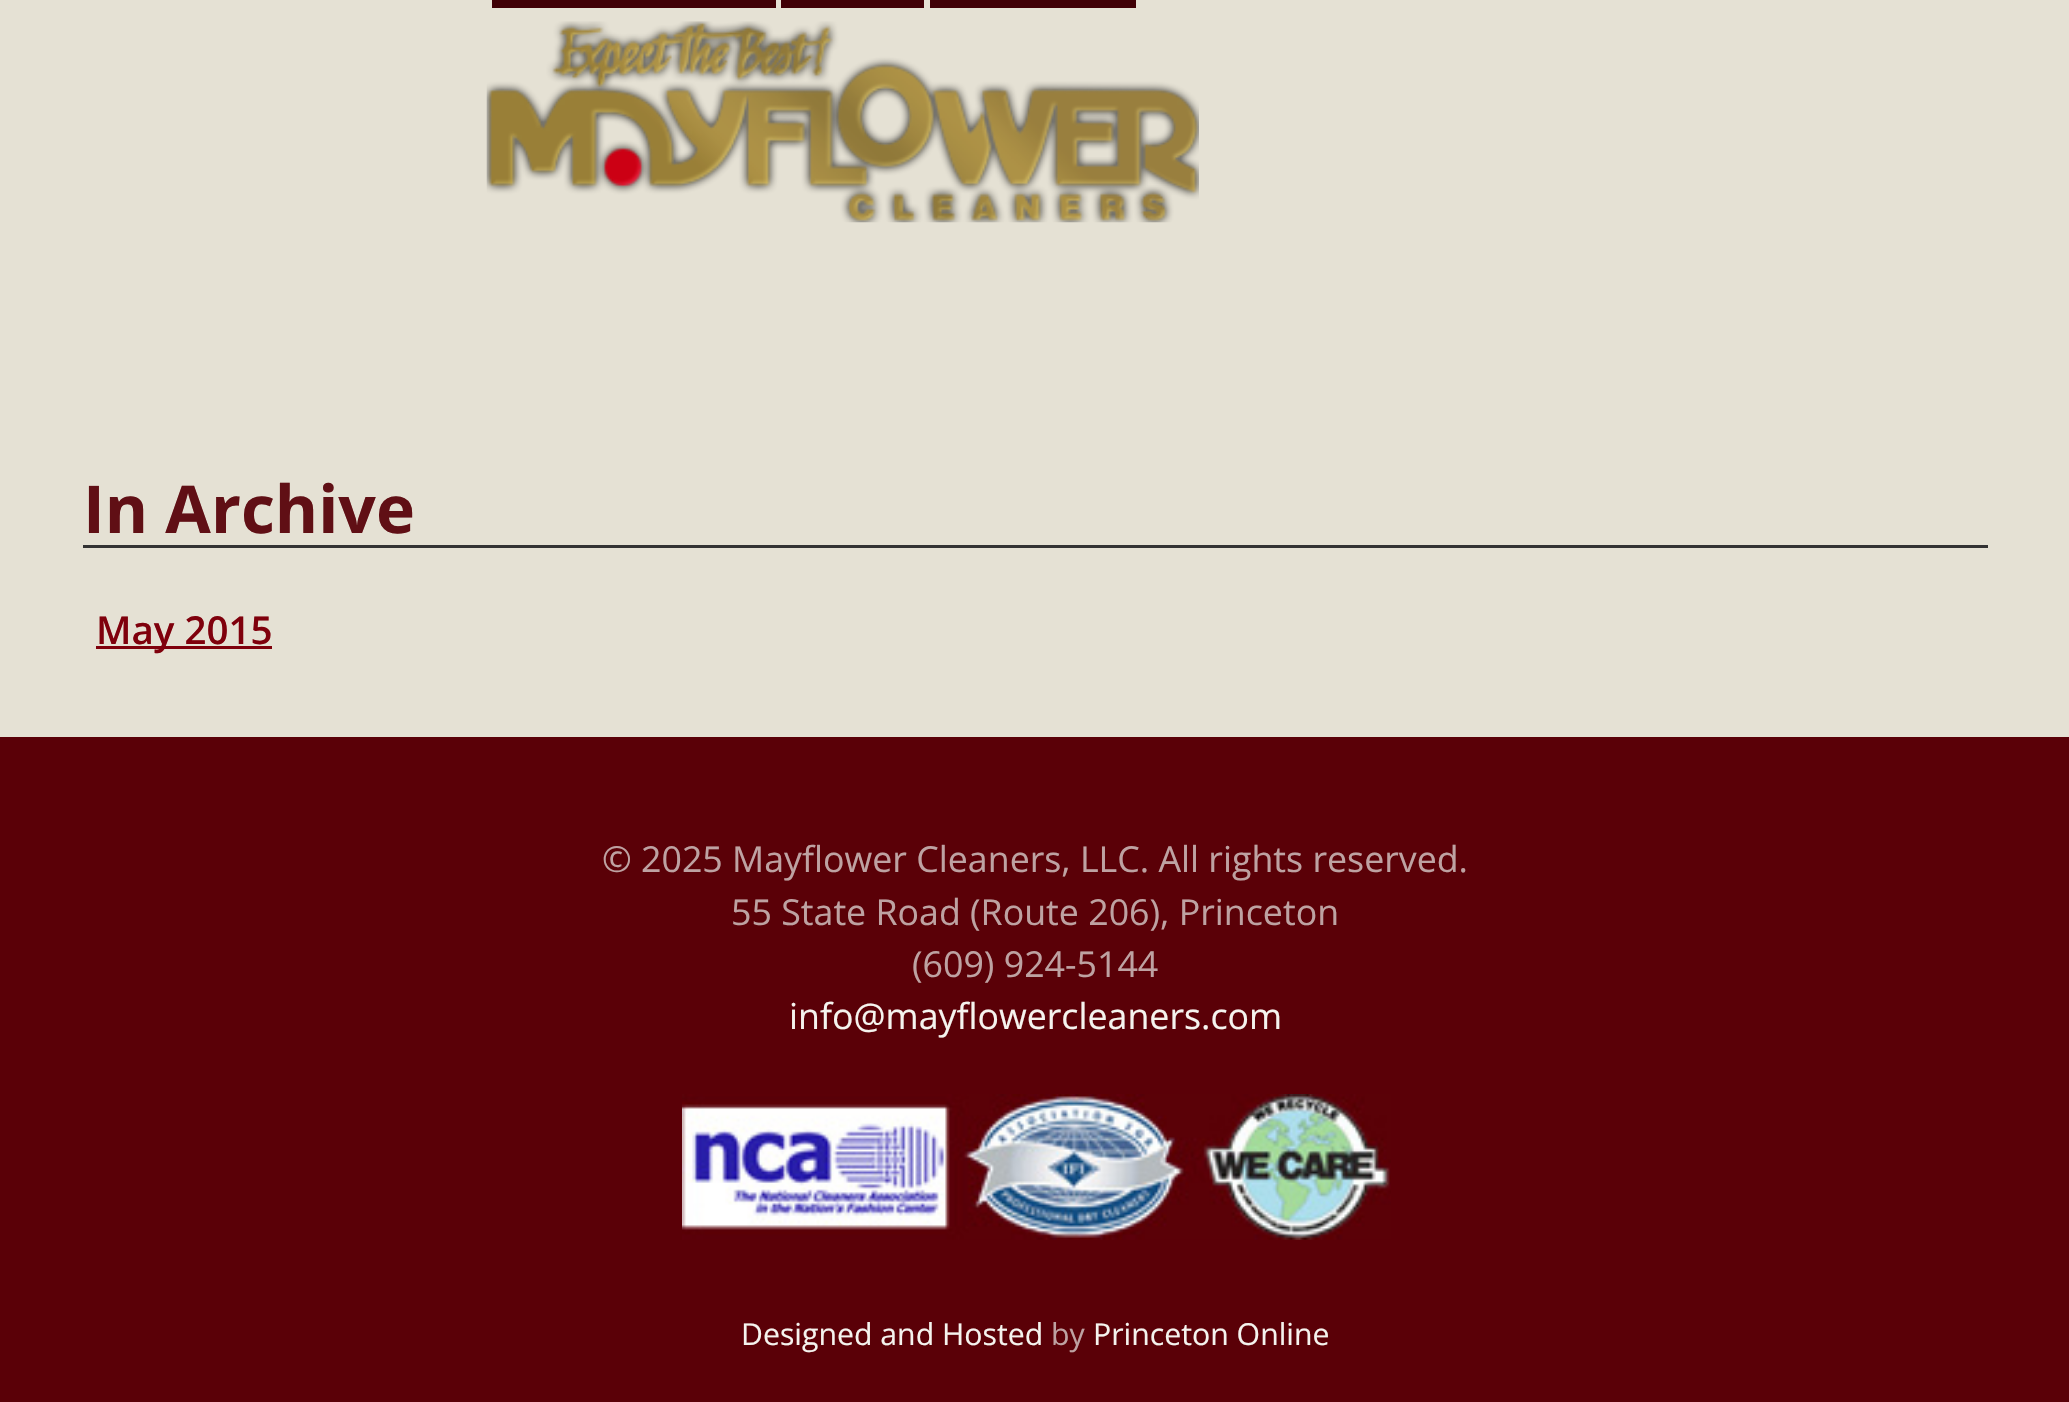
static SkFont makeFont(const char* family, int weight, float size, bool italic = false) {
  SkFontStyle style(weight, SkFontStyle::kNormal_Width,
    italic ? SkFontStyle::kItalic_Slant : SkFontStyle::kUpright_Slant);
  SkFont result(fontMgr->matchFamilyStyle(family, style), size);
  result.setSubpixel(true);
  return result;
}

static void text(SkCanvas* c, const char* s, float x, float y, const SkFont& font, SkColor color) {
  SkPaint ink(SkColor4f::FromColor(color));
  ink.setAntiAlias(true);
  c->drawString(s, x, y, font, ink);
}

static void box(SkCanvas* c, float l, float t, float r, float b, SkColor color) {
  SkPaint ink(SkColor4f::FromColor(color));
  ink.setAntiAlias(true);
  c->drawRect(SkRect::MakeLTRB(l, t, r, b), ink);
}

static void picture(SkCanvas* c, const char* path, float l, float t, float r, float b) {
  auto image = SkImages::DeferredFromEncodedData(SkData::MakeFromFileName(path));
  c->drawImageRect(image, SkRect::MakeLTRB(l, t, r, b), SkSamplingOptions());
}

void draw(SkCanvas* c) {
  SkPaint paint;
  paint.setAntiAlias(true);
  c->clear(0xffe5e1d4);
  box(c, 492, 0, 776, 8, 0xff400006);
  box(c, 781, 0, 924, 8, 0xff400006);
  box(c, 930, 0, 1136, 8, 0xff400006);
  picture(c, "img_01.png", 486, 21, 1199, 223);
  box(c, 83, 545, 1988, 548, 0xff333333);
  SkFont face1 = makeFont("Open Sans", 700, 66);
  text(c, "In Archive", 83, 533, face1, 0xff600f15);
  box(c, 96, 646, 272, 649, 0xff7f000c);
  SkFont face2 = makeFont("Open Sans", 600, 38.5f);
  text(c, "May 2015", 96, 644, face2, 0xff7f000c);
  box(c, 0, 737, 2069, 1402, 0xff5a0007);
  SkFont face3 = makeFont("Open Sans", 400, 35.75f);
  text(c, "© 2025 Mayflower Cleaners, LLC. All rights reserved.", 602, 872, face3, 0xffbea2a2);
  text(c, "55 State Road (Route 206), Princeton", 731, 925, face3, 0xffbea2a2);
  text(c, "(609) 924-5144", 912, 977, face3, 0xffbea2a2);
  text(c, "info@mayflowercleaners.com", 789, 1029, face3, 0xfff5f3ee);
  picture(c, "img_02.png", 682, 1094, 1391, 1240);
  SkFont face4 = makeFont("Open Sans", 400, 30.25f);
  text(c, "Designed and Hosted", 741, 1345, face4, 0xfff5f3ee);
  text(c, "by", 1051, 1345, face4, 0xffbea2a2);
  text(c, "Princeton Online", 1093, 1345, face4, 0xfff5f3ee);
}
